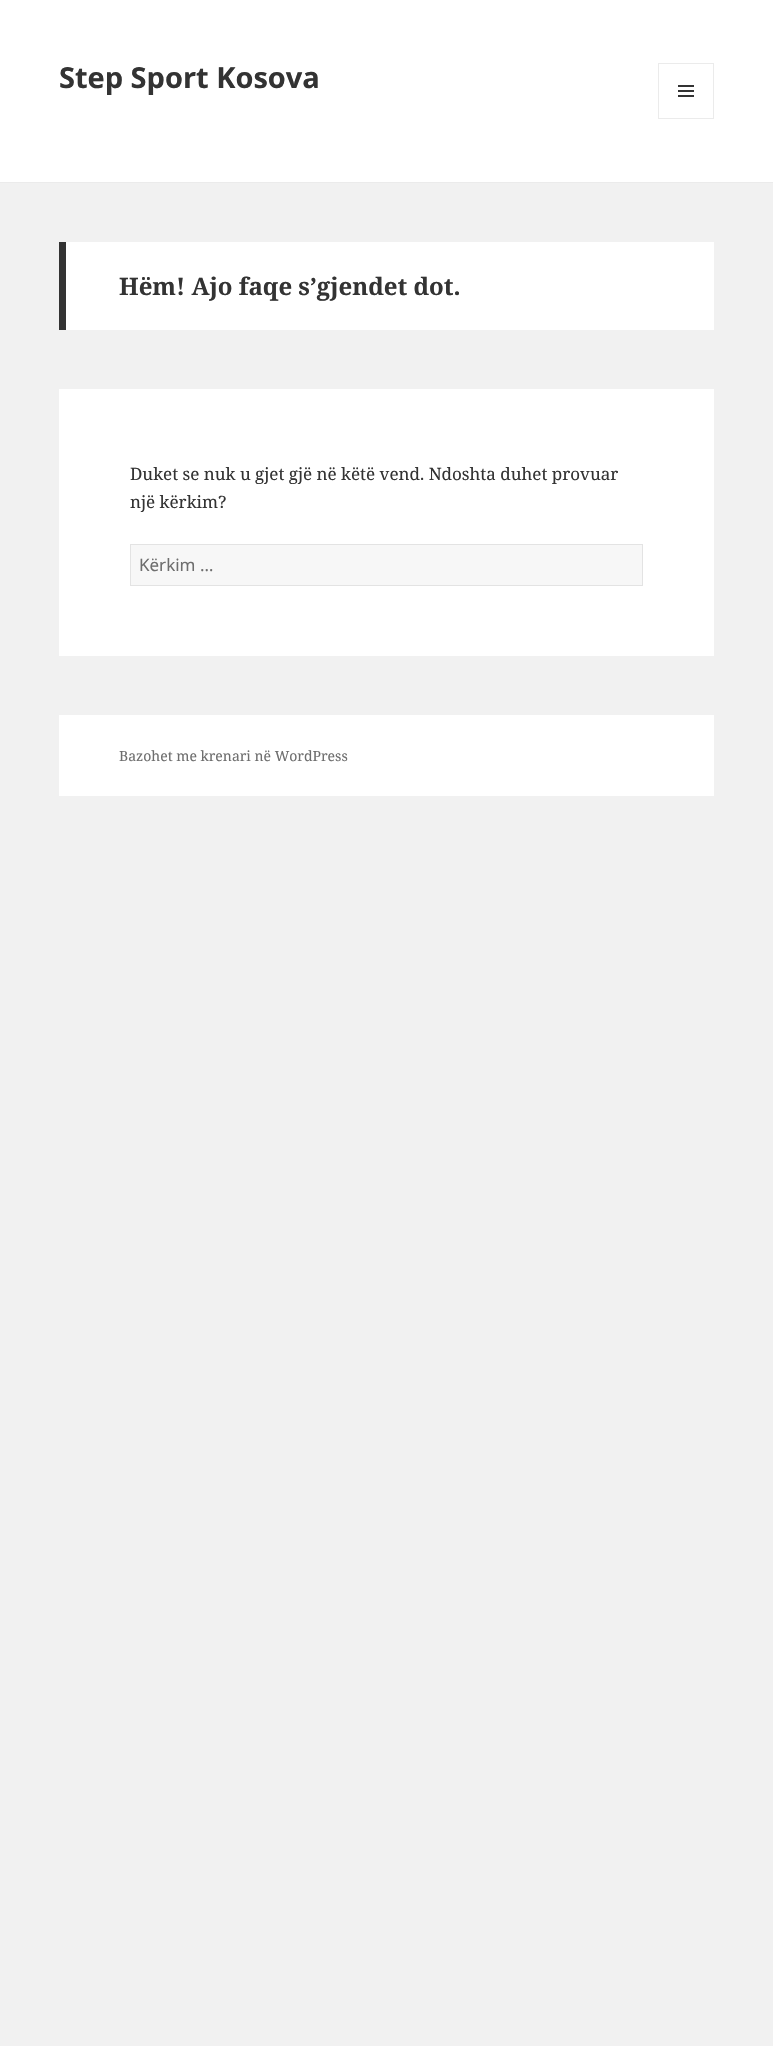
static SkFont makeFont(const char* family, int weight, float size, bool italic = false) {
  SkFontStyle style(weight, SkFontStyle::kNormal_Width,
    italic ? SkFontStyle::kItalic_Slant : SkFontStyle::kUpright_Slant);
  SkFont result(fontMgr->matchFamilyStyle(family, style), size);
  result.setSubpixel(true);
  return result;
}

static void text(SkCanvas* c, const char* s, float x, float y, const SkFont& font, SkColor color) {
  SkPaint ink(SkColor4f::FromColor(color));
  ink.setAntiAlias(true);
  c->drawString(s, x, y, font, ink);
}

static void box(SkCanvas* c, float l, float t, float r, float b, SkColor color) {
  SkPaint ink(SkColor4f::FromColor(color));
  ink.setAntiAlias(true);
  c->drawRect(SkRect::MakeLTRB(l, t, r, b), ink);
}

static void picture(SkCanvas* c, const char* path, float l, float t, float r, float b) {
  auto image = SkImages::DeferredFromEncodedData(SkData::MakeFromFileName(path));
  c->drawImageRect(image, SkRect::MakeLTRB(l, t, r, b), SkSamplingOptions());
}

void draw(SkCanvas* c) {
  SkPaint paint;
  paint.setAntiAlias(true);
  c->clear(0xfff1f1f1);
  box(c, 0, 0, 773, 182, 0xffffffff);
  box(c, 0, 182, 773, 183, 0xffebebeb);
  SkFont face1 = makeFont("Noto Sans", 700, 29);
  text(c, "Step Sport Kosova", 59, 88, face1, 0xff333333);
  paint.setStyle(SkPaint::kStroke_Style);
  paint.setStrokeWidth(1);
  paint.setColor(0xffebebeb);
  c->drawRect(SkRect::MakeLTRB(658.5f, 63.5f, 713.5f, 118.5f), paint);
  picture(c, "img_01.png", 678, 85, 694, 97);
  box(c, 66, 242, 714, 330, 0xffffffff);
  box(c, 59, 242, 66, 330, 0xff333333);
  SkFont face2 = makeFont("Noto Serif", 700, 24);
  text(c, "Hëm! Ajo faqe s’gjendet dot.", 119, 295, face2, 0xff333333);
  box(c, 59, 389, 714, 656, 0xffffffff);
  SkFont face3 = makeFont("Noto Serif", 400, 17);
  text(c, "Duket se nuk u gjet gjë në këtë vend. Ndoshta duhet provuar", 130, 480, face3, 0xff333333);
  text(c, "një kërkim?", 130, 508, face3, 0xff333333);
  paint.setStyle(SkPaint::kFill_Style);
  paint.setColor(0xfff7f7f7);
  c->drawRect(SkRect::MakeLTRB(130.5f, 544.5f, 642.5f, 585.5f), paint);
  paint.setStyle(SkPaint::kStroke_Style);
  paint.setColor(0xffe3e3e3);
  c->drawRect(SkRect::MakeLTRB(130.5f, 544.5f, 642.5f, 585.5f), paint);
  SkFont face4 = makeFont("Noto Sans", 400, 17);
  text(c, "Kërkim …", 139, 571, face4, 0xff6e6e6e);
  box(c, 59, 715, 714, 796, 0xffffffff);
  SkFont face5 = makeFont("Noto Serif", 400, 14);
  text(c, "Bazohet me krenari në WordPress", 119, 761, face5, 0xff6e6e6e);
}
